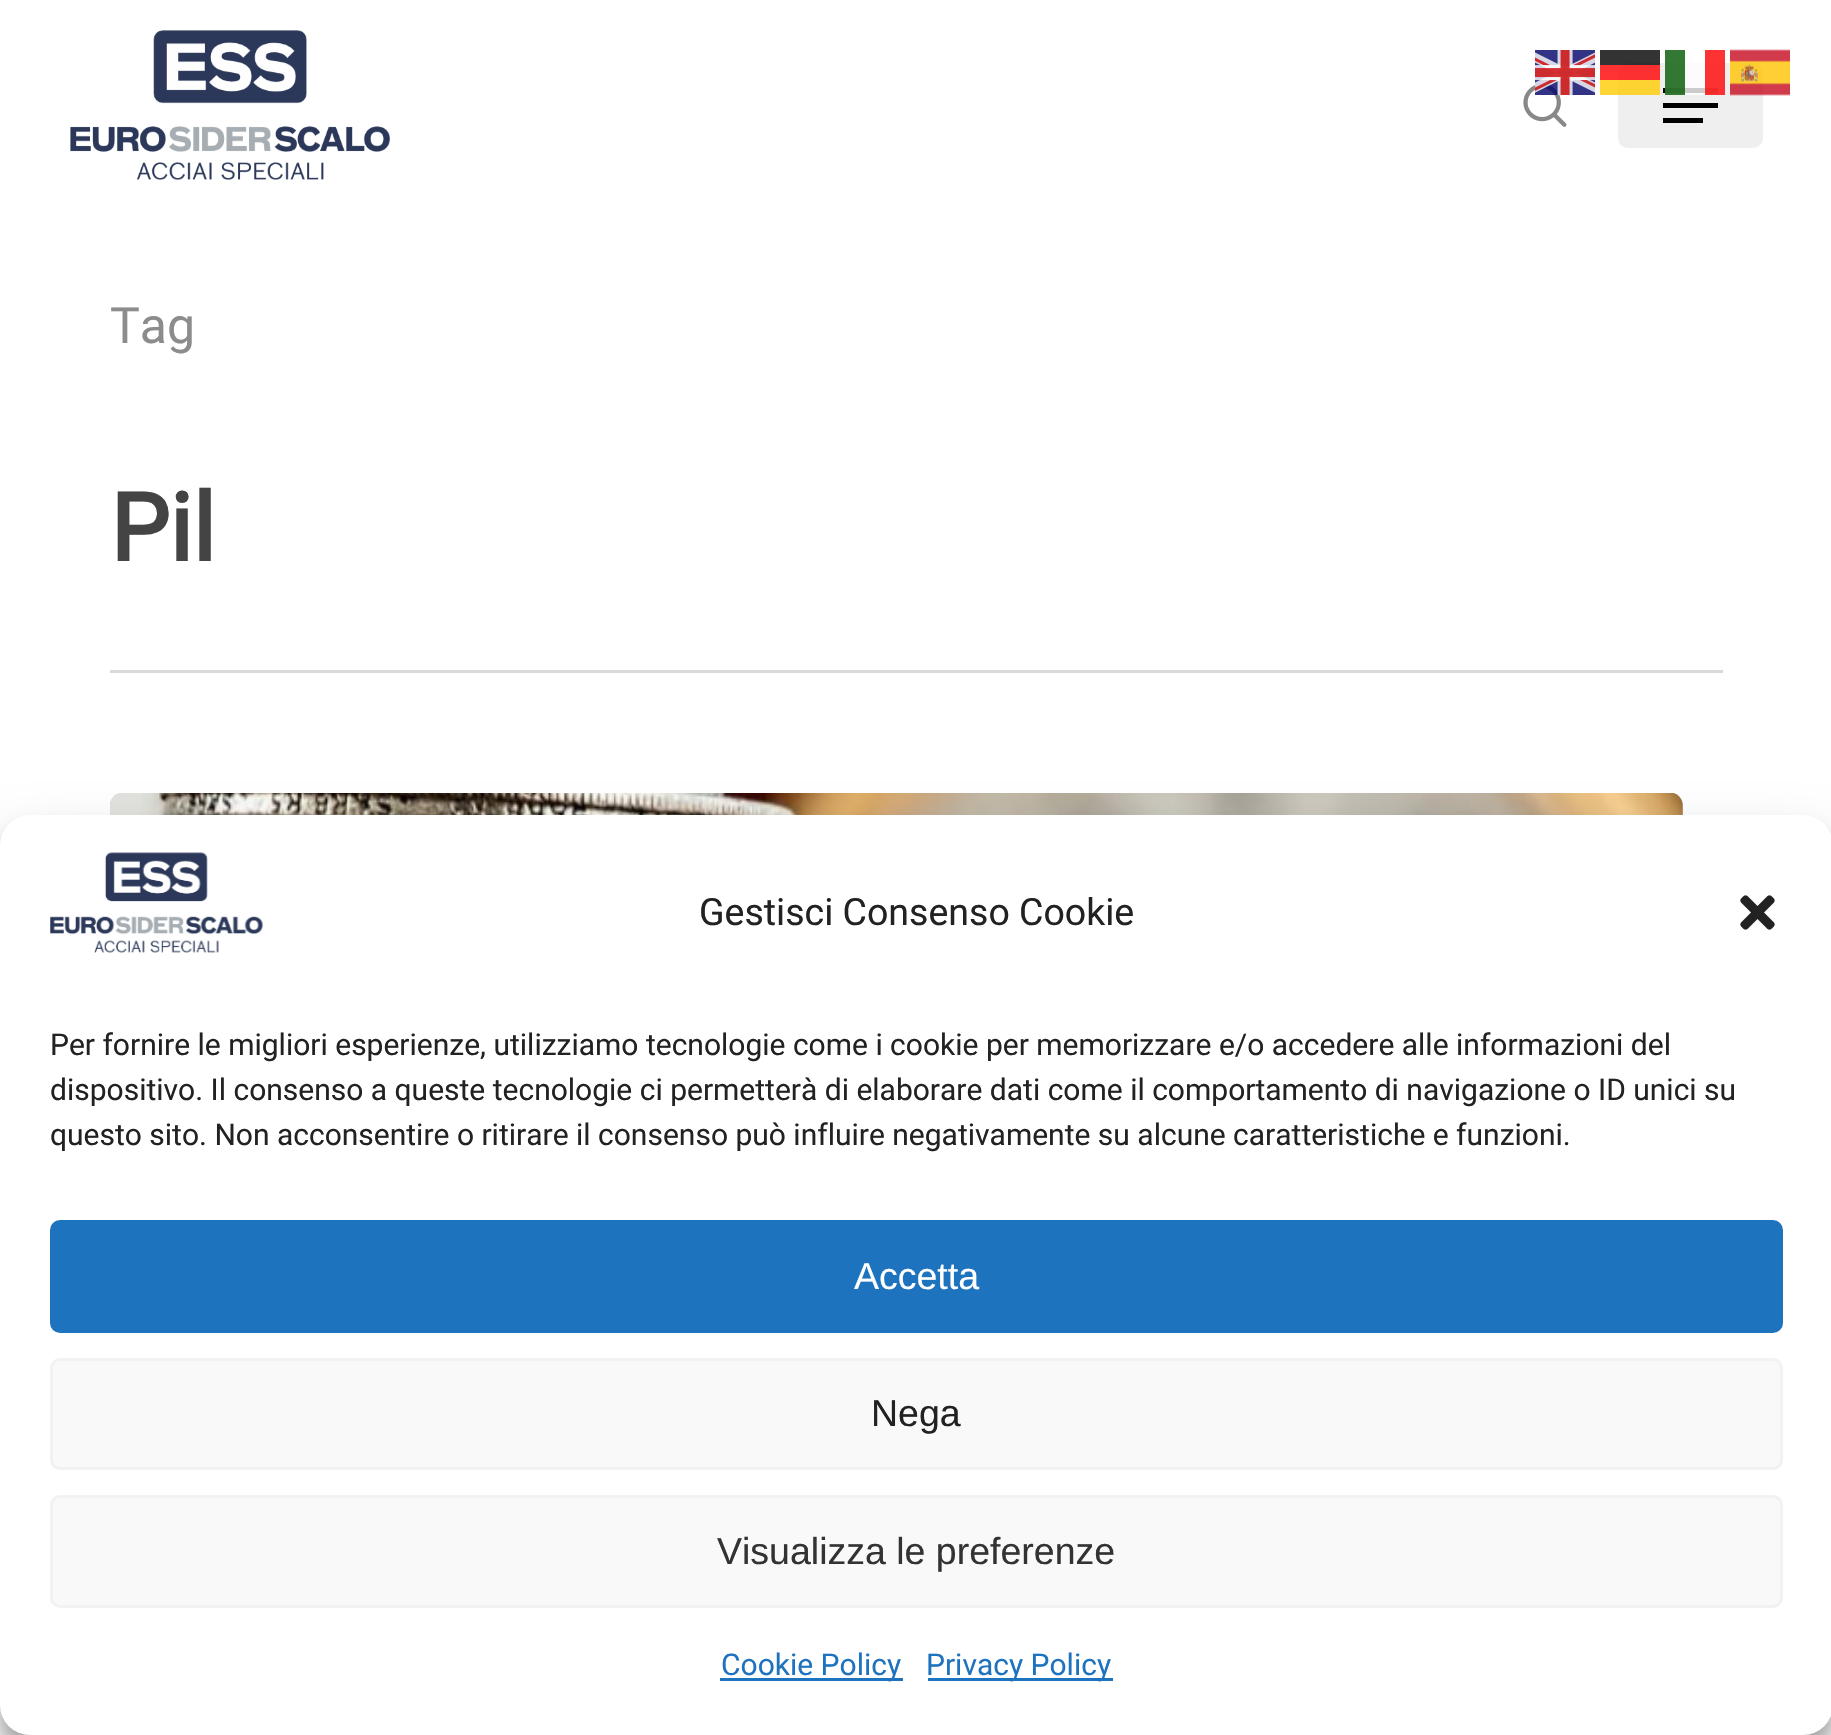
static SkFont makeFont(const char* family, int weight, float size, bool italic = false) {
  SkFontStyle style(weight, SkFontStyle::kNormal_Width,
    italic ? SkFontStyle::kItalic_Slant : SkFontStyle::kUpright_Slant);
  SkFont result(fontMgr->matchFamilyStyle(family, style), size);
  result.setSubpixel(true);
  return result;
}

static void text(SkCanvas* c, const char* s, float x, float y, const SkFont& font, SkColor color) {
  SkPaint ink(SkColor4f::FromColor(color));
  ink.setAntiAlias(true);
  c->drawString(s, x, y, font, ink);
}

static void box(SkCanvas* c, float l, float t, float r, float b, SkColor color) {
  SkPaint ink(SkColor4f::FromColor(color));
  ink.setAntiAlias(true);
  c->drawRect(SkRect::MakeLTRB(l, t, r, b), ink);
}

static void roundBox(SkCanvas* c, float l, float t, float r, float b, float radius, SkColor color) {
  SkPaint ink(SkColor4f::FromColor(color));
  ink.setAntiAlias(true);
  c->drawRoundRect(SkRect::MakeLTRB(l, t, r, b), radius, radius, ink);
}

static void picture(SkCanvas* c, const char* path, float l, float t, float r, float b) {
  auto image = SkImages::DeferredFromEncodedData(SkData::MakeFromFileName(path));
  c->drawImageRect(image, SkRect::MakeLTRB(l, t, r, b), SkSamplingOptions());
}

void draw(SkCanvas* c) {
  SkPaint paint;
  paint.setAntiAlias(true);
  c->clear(0xffffffff);
  box(c, 1705, 50, 1725, 63, 0xfffd3333);
  box(c, 1665, 50, 1685, 63, 0xff337933);
  box(c, 1600, 80, 1618, 95, 0xffffd633);
  picture(c, "img_04.png", 1523, 83, 1567, 127);
  picture(c, "img_01.png", 1535, 50, 1595, 95);
  roundBox(c, 1618, 63, 1763, 148, 10, 0xffefefef);
  box(c, 1600, 50, 1660, 65, 0xcc000000);
  picture(c, "img_02.png", 1730, 49, 1790, 96);
  box(c, 1600, 65, 1660, 80, 0xccff0000);
  picture(c, "img_03.png", 70, 30, 390, 180);
  box(c, 1685, 63, 1705, 95, 0xfffcfcfc);
  box(c, 1705, 63, 1725, 95, 0xfffc3232);
  box(c, 1665, 63, 1685, 95, 0xff327832);
  box(c, 1618, 80, 1660, 95, 0xfffcd330);
  box(c, 1663, 88, 1665, 93, 0xff000000);
  box(c, 1685, 88, 1705, 93, 0xffcccccc);
  box(c, 1705, 88, 1718, 93, 0xfff22929);
  box(c, 1665, 88, 1685, 93, 0xff296e29);
  box(c, 1663, 118, 1703, 123, 0xff000000);
  box(c, 1663, 103, 1718, 108, 0xff000000);
  box(c, 110, 670, 1723, 673, 0xffd9d9d9);
  SkFont face1 = makeFont("Roboto", 400, 50);
  text(c, "Tag", 110, 343, face1, 0xff8c8c8c);
  SkFont face2 = makeFont("Roboto", 700, 94);
  text(c, "Pil", 110, 561, face2, 0xff444444);
  roundBox(c, 110, 793, 1683, 1660, 13, 0xffb3b3b3);
  picture(c, "img_05.png", 110, 793, 1683, 815);
  paint.setColor(0x3b000000);
  paint.setMaskFilter(SkMaskFilter::MakeBlur(kNormal_SkBlurStyle, 7.5f));
  c->drawRoundRect(SkRect::MakeLTRB(0, 830, 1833, 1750), 30, 30, paint);
  paint.setMaskFilter(nullptr);
  paint.setColor(0x30000000);
  paint.setMaskFilter(SkMaskFilter::MakeBlur(kNormal_SkBlurStyle, 25));
  c->drawRoundRect(SkRect::MakeLTRB(0, 840, 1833, 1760), 30, 30, paint);
  paint.setMaskFilter(nullptr);
  roundBox(c, 0, 815, 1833, 1735, 30, 0xffffffff);
  picture(c, "img_06.png", 50, 852, 263, 953);
  SkFont face3 = makeFont("Roboto", 400, 37.5f);
  text(c, "Gestisci Consenso Cookie", 699, 925, face3, 0xff222222);
  picture(c, "img_07.png", 1740, 895, 1775, 930);
  SkFont face4 = makeFont("Roboto", 400, 30);
  text(c, "Per fornire le migliori esperienze, utilizziamo tecnologie come i cookie per memorizzare e/o accedere alle informazioni del", 50, 1055, face4, 0xff222222);
  text(c, "dispositivo. Il consenso a queste tecnologie ci permetterà di elaborare dati come il comportamento di navigazione o ID unici su", 50, 1100, face4, 0xff222222);
  text(c, "questo sito. Non acconsentire o ritirare il consenso può influire negativamente su alcune caratteristiche e funzioni.", 50, 1145, face4, 0xff222222);
  paint.setColor(0xff1e73be);
  c->drawRoundRect(SkRect::MakeLTRB(51.5f, 1221.5f, 1781.5f, 1331.5f), 8.5f, 8.5f, paint);
  paint.setStyle(SkPaint::kStroke_Style);
  paint.setStrokeWidth(3);
  c->drawRoundRect(SkRect::MakeLTRB(51.5f, 1221.5f, 1781.5f, 1331.5f), 8.5f, 8.5f, paint);
  SkFont face5 = makeFont("Liberation Sans", 400, 37.5f);
  text(c, "Accetta", 854, 1289, face5, 0xffffffff);
  paint.setStyle(SkPaint::kFill_Style);
  paint.setColor(0xfff9f9f9);
  c->drawRoundRect(SkRect::MakeLTRB(51.5f, 1359.5f, 1781.5f, 1468.5f), 8.5f, 8.5f, paint);
  paint.setStyle(SkPaint::kStroke_Style);
  paint.setColor(0xfff2f2f2);
  c->drawRoundRect(SkRect::MakeLTRB(51.5f, 1359.5f, 1781.5f, 1468.5f), 8.5f, 8.5f, paint);
  text(c, "Nega", 871, 1426, face5, 0xff222222);
  paint.setStyle(SkPaint::kFill_Style);
  paint.setColor(0xfff9f9f9);
  c->drawRoundRect(SkRect::MakeLTRB(51.5f, 1496.5f, 1781.5f, 1606.5f), 8.5f, 8.5f, paint);
  paint.setStyle(SkPaint::kStroke_Style);
  paint.setColor(0xfff2f2f2);
  c->drawRoundRect(SkRect::MakeLTRB(51.5f, 1496.5f, 1781.5f, 1606.5f), 8.5f, 8.5f, paint);
  text(c, "Visualizza le preferenze", 717, 1564, face5, 0xff333333);
  box(c, 720, 1678, 903, 1681, 0xff1e73be);
  text(c, "Cookie Policy", 721, 1675, face4, 0xff1e73be);
  box(c, 928, 1678, 1113, 1681, 0xff1e73be);
  text(c, "Privacy Policy", 926, 1675, face4, 0xff1e73be);
}
